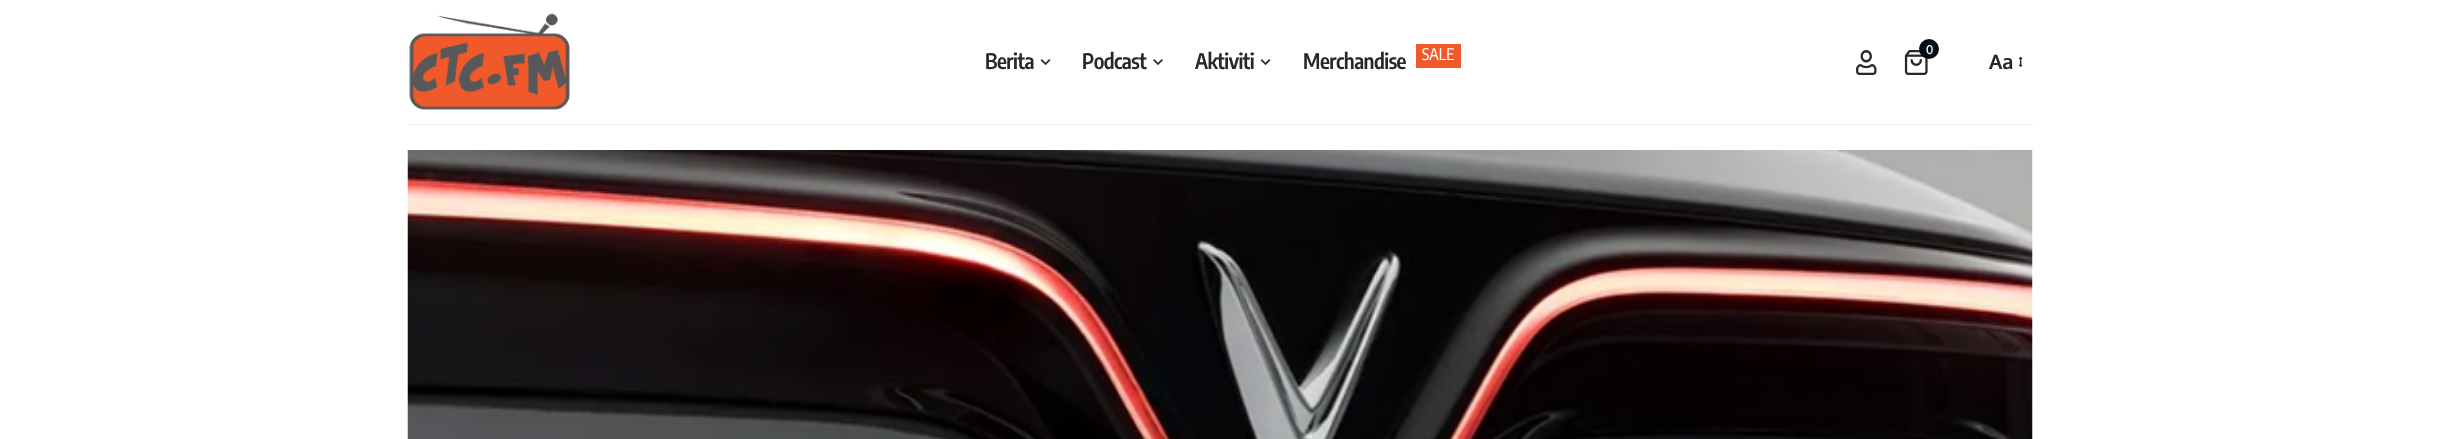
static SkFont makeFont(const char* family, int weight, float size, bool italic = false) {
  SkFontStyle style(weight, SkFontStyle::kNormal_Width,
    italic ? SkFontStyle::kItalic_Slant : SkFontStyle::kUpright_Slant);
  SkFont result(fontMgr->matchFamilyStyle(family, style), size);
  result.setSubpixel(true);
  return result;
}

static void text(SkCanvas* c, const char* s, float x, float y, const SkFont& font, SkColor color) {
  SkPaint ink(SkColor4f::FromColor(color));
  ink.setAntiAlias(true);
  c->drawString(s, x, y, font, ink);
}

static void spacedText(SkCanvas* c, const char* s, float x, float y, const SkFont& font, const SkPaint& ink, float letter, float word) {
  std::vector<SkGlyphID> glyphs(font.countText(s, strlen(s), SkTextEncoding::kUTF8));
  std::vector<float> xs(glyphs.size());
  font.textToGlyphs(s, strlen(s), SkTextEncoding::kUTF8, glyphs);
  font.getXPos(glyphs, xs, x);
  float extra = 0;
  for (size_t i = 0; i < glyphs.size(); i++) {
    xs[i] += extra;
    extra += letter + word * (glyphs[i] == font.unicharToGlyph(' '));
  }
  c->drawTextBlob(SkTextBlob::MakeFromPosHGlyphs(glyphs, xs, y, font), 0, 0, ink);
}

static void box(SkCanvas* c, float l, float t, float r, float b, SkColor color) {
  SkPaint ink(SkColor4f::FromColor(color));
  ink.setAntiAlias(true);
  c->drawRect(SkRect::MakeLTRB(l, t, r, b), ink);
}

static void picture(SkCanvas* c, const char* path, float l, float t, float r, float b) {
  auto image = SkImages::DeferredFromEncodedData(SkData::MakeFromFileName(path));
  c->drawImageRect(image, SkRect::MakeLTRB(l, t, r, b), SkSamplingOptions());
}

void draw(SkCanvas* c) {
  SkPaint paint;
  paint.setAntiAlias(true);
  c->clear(0xffffffff);
  picture(c, "img_01.png", 409, 13, 570, 110);
  SkFont face1 = makeFont("Encode Sans Condensed", 600, 21.25f);
  paint.setColor(0xff282828);
  spacedText(c, "Berita", 985, 69, face1, paint, -0.5f, 0);
  picture(c, "img_02.png", 1040, 59, 1051, 66);
  spacedText(c, "Podcast", 1082, 69, face1, paint, -0.5f, 0);
  picture(c, "img_03.png", 1153, 59, 1163, 65);
  spacedText(c, "Aktiviti", 1195, 69, face1, paint, -0.5f, 0);
  picture(c, "img_02.png", 1260, 59, 1271, 66);
  spacedText(c, "Merchandise", 1303, 69, face1, paint, -0.5f, 0);
  box(c, 1416, 44, 1461, 68, 0xfff0592a);
  SkFont face2 = makeFont("Encode Sans Condensed", 400, 16);
  text(c, "SALE", 1422, 60, face2, 0xffffffff);
  picture(c, "img_04.png", 1856, 50, 1877, 75);
  picture(c, "img_05.png", 1904, 50, 1928, 75);
  paint.setColor(0xff030e14);
  c->drawCircle(1929, 49, 10, paint);
  SkFont face3 = makeFont("Oxygen", 400, 12);
  text(c, "0", 1926, 54, face3, 0xffffffff);
  SkFont face4 = makeFont("Oxygen", 700, 20);
  text(c, "Aa", 1989, 69, face4, 0xff282828);
  picture(c, "img_06.png", 2018, 56, 2023, 67);
  box(c, 408, 124, 2033, 125, 0xffededed);
  picture(c, "img_07.png", 407, 150, 2033, 439);
}
